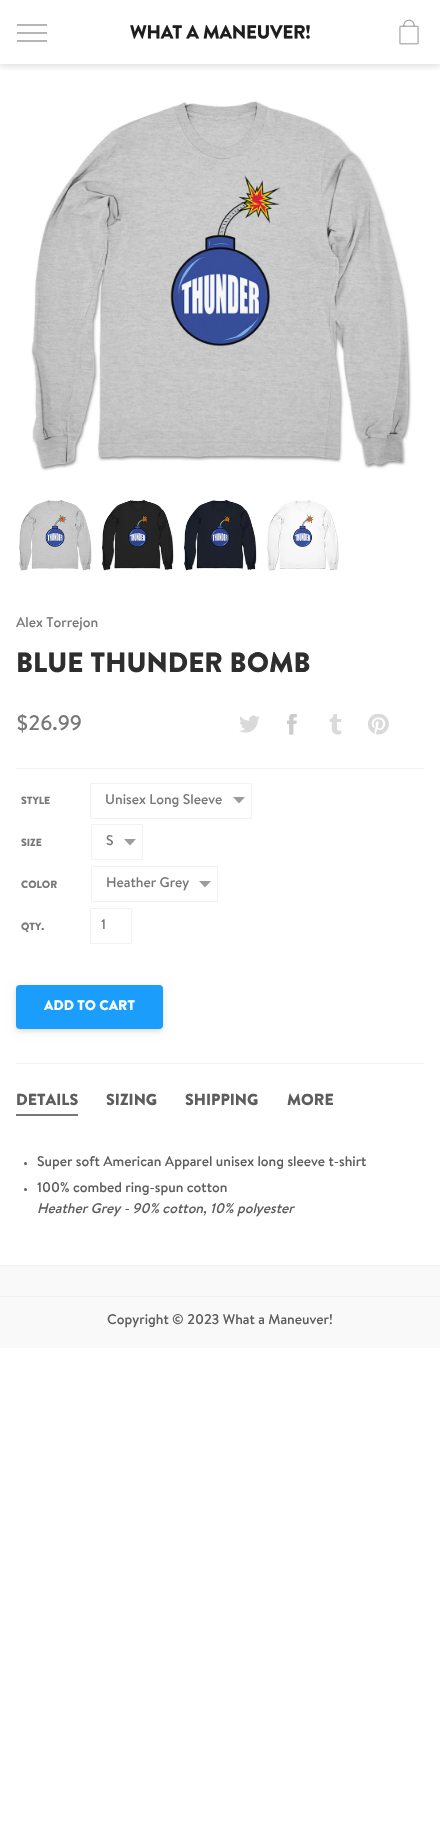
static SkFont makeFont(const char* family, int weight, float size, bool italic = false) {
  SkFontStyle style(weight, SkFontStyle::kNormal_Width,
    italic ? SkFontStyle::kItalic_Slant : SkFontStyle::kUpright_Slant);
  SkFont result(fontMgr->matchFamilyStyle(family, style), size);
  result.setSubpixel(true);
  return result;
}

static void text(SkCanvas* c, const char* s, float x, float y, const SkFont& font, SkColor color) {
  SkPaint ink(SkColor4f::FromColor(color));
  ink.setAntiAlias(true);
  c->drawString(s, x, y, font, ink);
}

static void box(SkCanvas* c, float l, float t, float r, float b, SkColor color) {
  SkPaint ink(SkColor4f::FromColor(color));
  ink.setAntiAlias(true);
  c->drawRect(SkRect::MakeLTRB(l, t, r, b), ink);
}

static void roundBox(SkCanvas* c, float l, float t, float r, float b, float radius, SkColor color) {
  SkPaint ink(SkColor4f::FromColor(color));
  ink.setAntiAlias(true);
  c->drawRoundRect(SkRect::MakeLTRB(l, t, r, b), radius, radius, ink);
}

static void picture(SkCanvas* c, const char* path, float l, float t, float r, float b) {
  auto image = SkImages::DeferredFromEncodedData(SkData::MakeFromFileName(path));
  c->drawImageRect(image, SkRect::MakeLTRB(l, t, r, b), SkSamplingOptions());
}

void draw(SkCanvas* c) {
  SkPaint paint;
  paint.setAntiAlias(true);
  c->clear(0xffffffff);
  c->save();
  c->clipRect(SkRect::MakeLTRB(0, 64, 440, 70));
  paint.setColor(0x33000000);
  paint.setMaskFilter(SkMaskFilter::MakeBlur(kNormal_SkBlurStyle, 5));
  c->drawRect(SkRect::MakeLTRB(0, 0, 440, 64), paint);
  paint.setMaskFilter(nullptr);
  c->restore();
  box(c, 17, 24, 47, 26, 0xffb5b5b5);
  box(c, 17, 32, 47, 34, 0xffb5b5b5);
  box(c, 17, 40, 47, 42, 0xffb5b5b5);
  picture(c, "img_01.png", 130, 25, 310, 39);
  picture(c, "img_02.png", 399, 19, 419, 45);
  picture(c, "img_03.png", 31, 101, 412, 471);
  picture(c, "img_04.png", 19, 500, 92, 571);
  picture(c, "img_05.png", 101, 499, 174, 571);
  picture(c, "img_06.png", 183, 499, 257, 571);
  picture(c, "img_07.png", 266, 500, 339, 571);
  SkFont face1 = makeFont("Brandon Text", 400, 14);
  text(c, "Alex Torrejon", 16, 627, face1, 0xff787878);
  SkFont face2 = makeFont("Brandon Text", 700, 28);
  text(c, "BLUE THUNDER BOMB", 16, 672, face2, 0xff2e2e2e);
  box(c, 16, 768, 424, 769, 0xfff1f1f1);
  SkFont face3 = makeFont("Brandon Text", 400, 21);
  text(c, "$26.99", 16, 730, face3, 0xff787878);
  picture(c, "img_08.png", 239, 715, 260, 733);
  picture(c, "img_09.png", 287, 714, 297, 735);
  picture(c, "img_10.png", 329, 714, 342, 735);
  picture(c, "img_11.png", 368, 714, 389, 735);
  SkFont face4 = makeFont("Brandon Text", 700, 10.5f);
  text(c, "STYLE", 21, 804, face4, 0xff787878);
  paint.setStyle(SkPaint::kStroke_Style);
  paint.setStrokeWidth(1);
  paint.setColor(0xfff1f1f1);
  c->drawRoundRect(SkRect::MakeLTRB(90.5f, 783.5f, 251.5f, 818.5f), 0.5f, 0.5f, paint);
  text(c, "Unisex Long Sleeve", 105, 804, face1, 0xff787878);
  paint.setStyle(SkPaint::kFill_Style);
  paint.setColor(0xff9c9c9c);
  c->drawPath(SkPathBuilder().moveTo(233, 797).lineTo(245, 797).lineTo(239, 803.5f).close().detach(), paint);
  text(c, "SIZE", 21, 846, face4, 0xff787878);
  paint.setStyle(SkPaint::kStroke_Style);
  paint.setColor(0xfff1f1f1);
  c->drawRoundRect(SkRect::MakeLTRB(91.5f, 824.5f, 142.5f, 859.5f), 0.5f, 0.5f, paint);
  text(c, "S", 106, 845, face1, 0xff787878);
  paint.setStyle(SkPaint::kFill_Style);
  paint.setColor(0xff9c9c9c);
  c->drawPath(SkPathBuilder().moveTo(124, 839).lineTo(136, 839).lineTo(130, 845.5f).close().detach(), paint);
  text(c, "COLOR", 21, 888, face4, 0xff787878);
  paint.setStyle(SkPaint::kStroke_Style);
  paint.setColor(0xfff1f1f1);
  c->drawRoundRect(SkRect::MakeLTRB(91.5f, 866.5f, 217.5f, 901.5f), 0.5f, 0.5f, paint);
  text(c, "Heather Grey", 106, 887, face1, 0xff787878);
  paint.setStyle(SkPaint::kFill_Style);
  paint.setColor(0xff9c9c9c);
  c->drawPath(SkPathBuilder().moveTo(199, 881).lineTo(211, 881).lineTo(205, 887.5f).close().detach(), paint);
  text(c, "QTY.", 21, 930, face4, 0xff787878);
  paint.setStyle(SkPaint::kStroke_Style);
  paint.setColor(0xfff1f1f1);
  c->drawRoundRect(SkRect::MakeLTRB(90.5f, 908.5f, 131.5f, 943.5f), 0.5f, 0.5f, paint);
  text(c, "1", 101, 929, face1, 0xff787878);
  paint.setStyle(SkPaint::kFill_Style);
  paint.setColor(0x0a000000);
  paint.setMaskFilter(SkMaskFilter::MakeBlur(kNormal_SkBlurStyle, 5));
  c->drawRoundRect(SkRect::MakeLTRB(16, 987, 163, 1031), 4, 4, paint);
  paint.setMaskFilter(nullptr);
  paint.setColor(0x1a000000);
  paint.setMaskFilter(SkMaskFilter::MakeBlur(kNormal_SkBlurStyle, 2));
  c->drawRoundRect(SkRect::MakeLTRB(16, 987, 163, 1031), 4, 4, paint);
  paint.setMaskFilter(nullptr);
  roundBox(c, 16, 985, 163, 1029, 4, 0xff1b9dfc);
  SkFont face5 = makeFont("Brandon Text", 700, 14);
  text(c, "ADD TO CART", 44, 1010, face5, 0xffffffff);
  box(c, 16, 1063, 424, 1064, 0xfff1f1f1);
  SkFont face6 = makeFont("Brandon Text", 700, 16);
  text(c, "DETAILS", 16, 1105, face6, 0xff5d5d5d);
  box(c, 16, 1114, 78, 1116, 0xff787878);
  text(c, "SIZING", 106, 1105, face6, 0xff5d5d5d);
  text(c, "SHIPPING", 185, 1105, face6, 0xff5d5d5d);
  text(c, "MORE", 287, 1105, face6, 0xff5d5d5d);
  paint.setColor(0xff5d5d5d);
  c->drawCircle(25.5f, 1163.5f, 1.5f, paint);
  text(c, "Super soft American Apparel unisex long sleeve t-shirt", 37, 1166, face1, 0xff5d5d5d);
  c->drawCircle(25.5f, 1189.5f, 1.5f, paint);
  text(c, "100% combed ring-spun cotton", 37, 1192, face1, 0xff5d5d5d);
  SkFont face7 = makeFont("Brandon Text", 400, 14, true);
  text(c, "Heather Grey - 90% cotton, 10% polyester", 37, 1213, face7, 0xff5d5d5d);
  box(c, 0, 1266, 440, 1348, 0xfff9f9f9);
  box(c, 0, 1265, 440, 1266, 0xfff1f1f1);
  box(c, 0, 1296, 440, 1297, 0xfff1f1f1);
  text(c, "Copyright © 2023 What a Maneuver!", 107, 1324, face1, 0xff5d5d5d);
}
